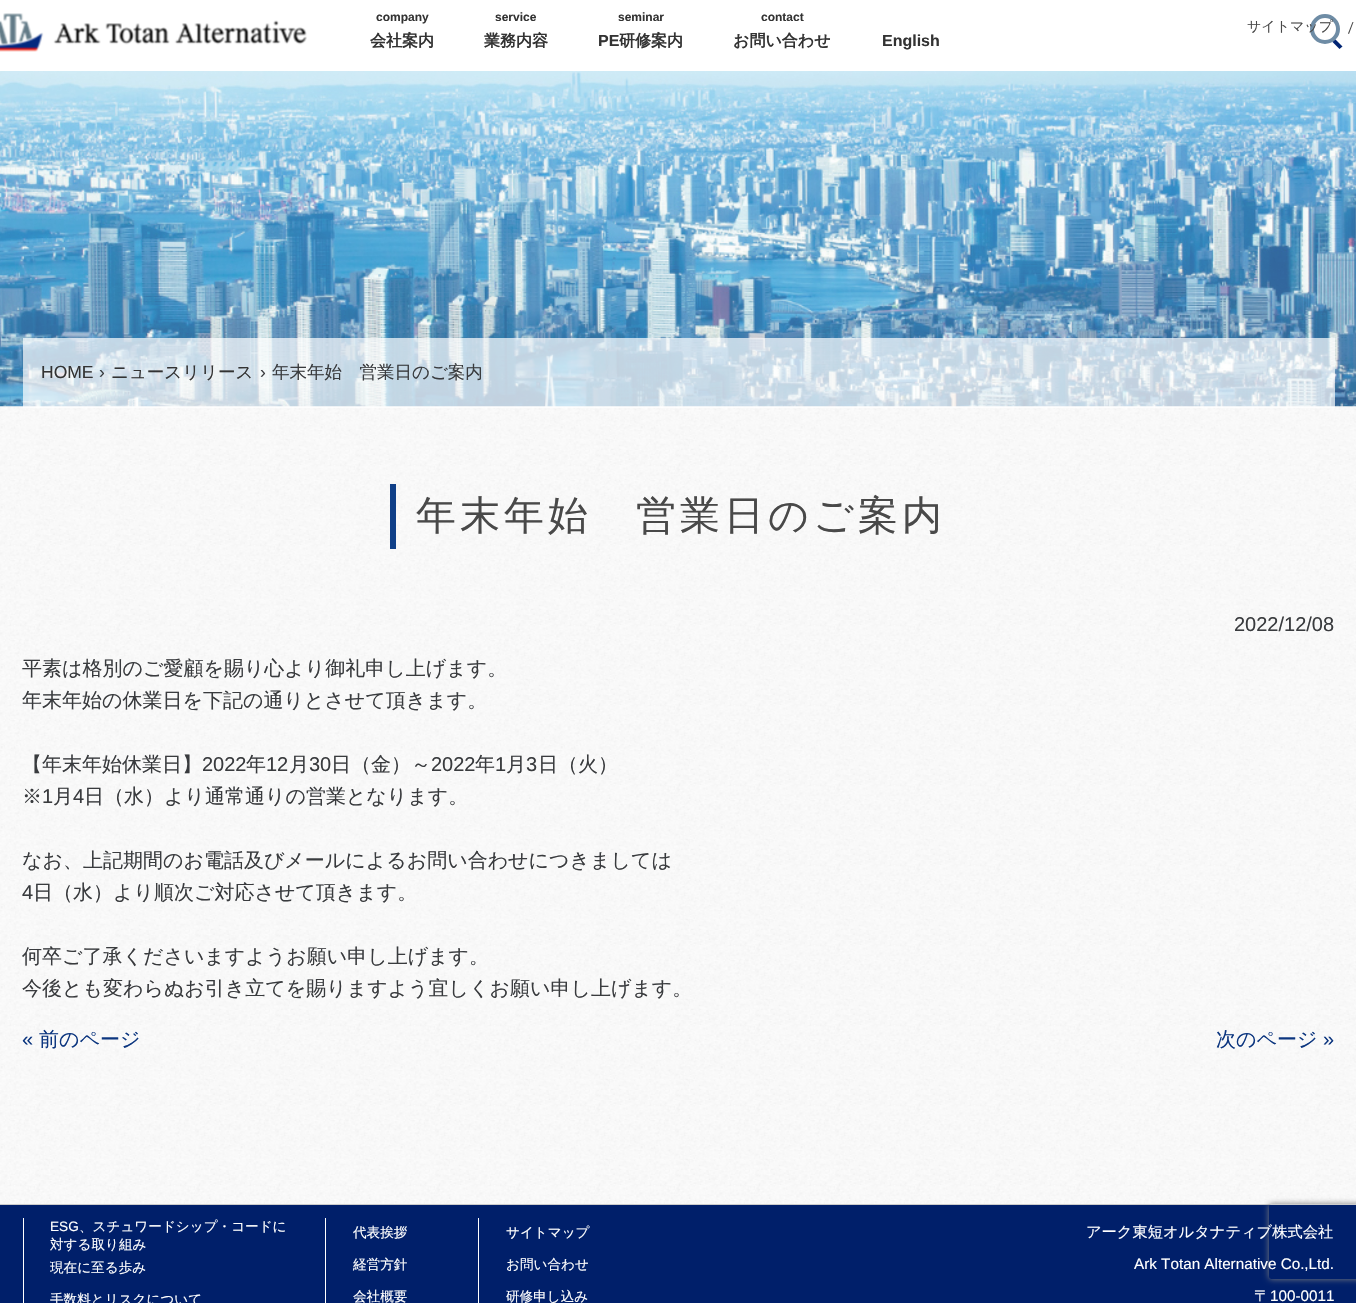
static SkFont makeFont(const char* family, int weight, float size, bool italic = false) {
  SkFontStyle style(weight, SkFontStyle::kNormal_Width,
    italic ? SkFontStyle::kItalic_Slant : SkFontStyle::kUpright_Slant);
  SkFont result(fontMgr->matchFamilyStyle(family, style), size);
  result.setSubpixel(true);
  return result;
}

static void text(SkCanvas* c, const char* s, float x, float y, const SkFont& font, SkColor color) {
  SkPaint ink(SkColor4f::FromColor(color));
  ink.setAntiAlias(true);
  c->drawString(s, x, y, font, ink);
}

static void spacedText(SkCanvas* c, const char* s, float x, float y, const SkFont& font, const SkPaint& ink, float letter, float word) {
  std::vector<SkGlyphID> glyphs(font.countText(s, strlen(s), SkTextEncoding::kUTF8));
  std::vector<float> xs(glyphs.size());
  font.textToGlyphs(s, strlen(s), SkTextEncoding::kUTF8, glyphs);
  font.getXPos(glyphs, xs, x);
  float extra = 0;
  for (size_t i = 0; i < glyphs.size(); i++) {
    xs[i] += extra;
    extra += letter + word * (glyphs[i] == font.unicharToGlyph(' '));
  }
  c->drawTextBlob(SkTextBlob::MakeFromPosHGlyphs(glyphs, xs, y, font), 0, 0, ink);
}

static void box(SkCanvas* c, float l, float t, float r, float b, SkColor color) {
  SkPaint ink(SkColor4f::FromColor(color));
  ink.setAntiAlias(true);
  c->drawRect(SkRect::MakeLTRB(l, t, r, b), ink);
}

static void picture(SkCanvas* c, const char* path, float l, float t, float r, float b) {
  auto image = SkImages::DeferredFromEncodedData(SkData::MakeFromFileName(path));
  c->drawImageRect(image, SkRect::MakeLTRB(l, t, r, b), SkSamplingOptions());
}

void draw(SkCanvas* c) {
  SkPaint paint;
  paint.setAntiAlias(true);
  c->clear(0xffffffff);
  picture(c, "img_01.png", 0, 71, 1356, 1204);
  picture(c, "img_02.png", 0, 13, 307, 52);
  SkFont face1 = makeFont("Liberation Sans", 700, 12);
  text(c, "company", 376, 21, face1, 0xff333333);
  SkFont face2 = makeFont("WenQuanYi Zen Hei", 700, 16);
  text(c, "会社案内", 370, 46, face2, 0xff333333);
  text(c, "service", 495, 21, face1, 0xff333333);
  text(c, "業務内容", 484, 46, face2, 0xff333333);
  text(c, "seminar", 618, 21, face1, 0xff333333);
  SkFont face3 = makeFont("Liberation Sans", 700, 16);
  text(c, "PE", 598, 46, face3, 0xff333333);
  text(c, "研修案内", 619, 46, face2, 0xff333333);
  text(c, "contact", 761, 21, face1, 0xff333333);
  text(c, "お問い合わせ", 733, 46, face2, 0xff333333);
  text(c, "English", 882, 46, face3, 0xff333333);
  paint.setStyle(SkPaint::kStroke_Style);
  paint.setStrokeWidth(4);
  paint.setColor(0xff6e8ca5);
  c->drawCircle(1325, 29, 13, paint);
  paint.setStyle(SkPaint::kFill_Style);
  paint.setColor(0xff002473);
  c->drawPath(SkPathBuilder().moveTo(1335.5f, 39.5f).lineTo(1342.5f, 46.5f).lineTo(1339.5f, 49).lineTo(1332.5f, 42).close().detach(), paint);
  SkFont face4 = makeFont("WenQuanYi Zen Hei", 500, 14);
  text(c, "サイトマップ", 1247, 31, face4, 0xff494949);
  paint.setColor(0xff474747);
  c->drawPath(SkPathBuilder().moveTo(1352.5f, 22).lineTo(1353.5f, 22).lineTo(1349, 34).lineTo(1348, 33.5f).close().detach(), paint);
  picture(c, "img_03.png", 0, 71, 1356, 407);
  box(c, 23, 338, 1335, 408, 0xb3ffffff);
  SkFont face5 = makeFont("Liberation Sans", 400, 17.5f);
  text(c, "HOME", 41, 378, face5, 0xff333333);
  text(c, "›", 99, 378, face5, 0xff393b3e);
  SkFont face6 = makeFont("WenQuanYi Zen Hei", 500, 17.5f);
  text(c, "ニュースリリース", 111, 378, face6, 0xff333333);
  text(c, "›", 260, 378, face5, 0xff393b3e);
  text(c, "年末年始　営業日のご案内", 272, 378, face6, 0xff393b3e);
  SkFont face7 = makeFont("WenQuanYi Zen Hei", 500, 40);
  paint.setColor(0xff494949);
  spacedText(c, "年末年始　営業日のご案内", 416, 529, face7, paint, 4, 0);
  box(c, 390, 484, 396, 549, 0xff0f3f88);
  SkFont face8 = makeFont("Liberation Sans", 400, 20);
  text(c, "2022/12/08", 1234, 631, face8, 0xff393b3e);
  SkFont face9 = makeFont("WenQuanYi Zen Hei", 500, 20);
  text(c, "平素は格別のご愛顧を賜り心より御礼申し上げます。", 22, 675, face9, 0xff393b3e);
  text(c, "年末年始の休業日を下記の通りとさせて頂きます。", 22, 707, face9, 0xff393b3e);
  text(c, "【年末年始休業日】", 22, 771, face9, 0xff393b3e);
  text(c, "2022", 202, 771, face8, 0xff393b3e);
  text(c, "年", 246, 771, face9, 0xff393b3e);
  text(c, "12", 266, 771, face8, 0xff393b3e);
  text(c, "月", 289, 771, face9, 0xff393b3e);
  text(c, "30", 309, 771, face8, 0xff393b3e);
  text(c, "日（金）～", 331, 771, face9, 0xff393b3e);
  text(c, "2022", 431, 771, face8, 0xff393b3e);
  text(c, "年", 475, 771, face9, 0xff393b3e);
  text(c, "1", 495, 771, face8, 0xff393b3e);
  text(c, "月", 506, 771, face9, 0xff393b3e);
  text(c, "3", 526, 771, face8, 0xff393b3e);
  text(c, "日（火）", 538, 771, face9, 0xff393b3e);
  text(c, "※", 22, 803, face9, 0xff393b3e);
  text(c, "1", 42, 803, face8, 0xff393b3e);
  text(c, "月", 53, 803, face9, 0xff393b3e);
  text(c, "4", 73, 803, face8, 0xff393b3e);
  text(c, "日（水）より通常通りの営業となります。", 84, 803, face9, 0xff393b3e);
  text(c, "なお、上記期間のお電話及びメールによるお問い合わせにつきましては", 22, 867, face9, 0xff393b3e);
  text(c, "4", 22, 899, face8, 0xff393b3e);
  text(c, "日（水）より順次ご対応させて頂きます。", 33, 899, face9, 0xff393b3e);
  text(c, "何卒ご了承くださいますようお願い申し上げます。", 22, 963, face9, 0xff393b3e);
  text(c, "今後とも変わらぬお引き立てを賜りますよう宜しくお願い申し上げます。", 22, 995, face9, 0xff393b3e);
  text(c, "«", 22, 1046, face8, 0xff0b357f);
  text(c, "前のページ", 39, 1046, face9, 0xff0b357f);
  text(c, "次のページ", 1216, 1046, face9, 0xff0b357f);
  text(c, "»", 1323, 1046, face8, 0xff0b357f);
  box(c, 0, 1205, 1356, 1303, 0xff001f6a);
  box(c, 0, 1204, 1356, 1205, 0xffcccccc);
  c->save();
  c->clipPath(SkPathBuilder(SkPathFillType::kEvenOdd).moveTo(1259, 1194).lineTo(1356, 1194).lineTo(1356, 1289).lineTo(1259, 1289).close().moveTo(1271.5f, 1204).lineTo(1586.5f, 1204).cubicTo(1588, 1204, 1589, 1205, 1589, 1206.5f).lineTo(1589, 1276.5f).cubicTo(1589, 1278, 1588, 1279, 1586.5f, 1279).lineTo(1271.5f, 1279).cubicTo(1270, 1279, 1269, 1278, 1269, 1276.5f).lineTo(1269, 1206.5f).cubicTo(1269, 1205, 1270, 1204, 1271.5f, 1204).close().detach(), true);
  paint.setColor(0xff808080);
  paint.setMaskFilter(SkMaskFilter::MakeBlur(kNormal_SkBlurStyle, 3));
  c->drawRoundRect(SkRect::MakeLTRB(1269, 1204, 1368, 1279), 2.5f, 2.5f, paint);
  paint.setMaskFilter(nullptr);
  c->restore();
  box(c, 23, 1218, 24, 1303, 0xffffffff);
  SkFont face10 = makeFont("Liberation Sans", 400, 13.6f);
  text(c, "ESG", 50, 1231, face10, 0xffffffff);
  SkFont face11 = makeFont("WenQuanYi Zen Hei", 500, 13.6f);
  text(c, "、スチュワードシップ・コードに", 79, 1231, face11, 0xffffffff);
  text(c, "対する取り組み", 50, 1249, face11, 0xffffffff);
  text(c, "現在に至る歩み", 50, 1272, face11, 0xffffffff);
  text(c, "手数料とリスクについて", 50, 1304, face11, 0xffffffff);
  box(c, 325, 1218, 326, 1303, 0xffffffff);
  text(c, "代表挨拶", 353, 1237, face11, 0xffffffff);
  text(c, "経営方針", 353, 1269, face11, 0xffffffff);
  text(c, "会社概要", 353, 1301, face11, 0xffffffff);
  box(c, 478, 1218, 479, 1303, 0xffffffff);
  text(c, "サイトマップ", 506, 1237, face11, 0xffffffff);
  text(c, "お問い合わせ", 506, 1269, face11, 0xffffffff);
  text(c, "研修申し込み", 506, 1301, face11, 0xffffffff);
  SkFont face12 = makeFont("WenQuanYi Zen Hei", 500, 15.25f);
  text(c, "アーク東短オルタナティブ株式会社", 1086, 1237, face12, 0xffffffff);
  SkFont face13 = makeFont("Liberation Sans", 400, 15.25f);
  text(c, "Ark Totan Alternative Co.,Ltd.", 1134, 1269, face13, 0xffffffff);
  text(c, "〒", 1254, 1301, face12, 0xffffffff);
  text(c, "100-0011", 1270, 1301, face13, 0xffffffff);
}
